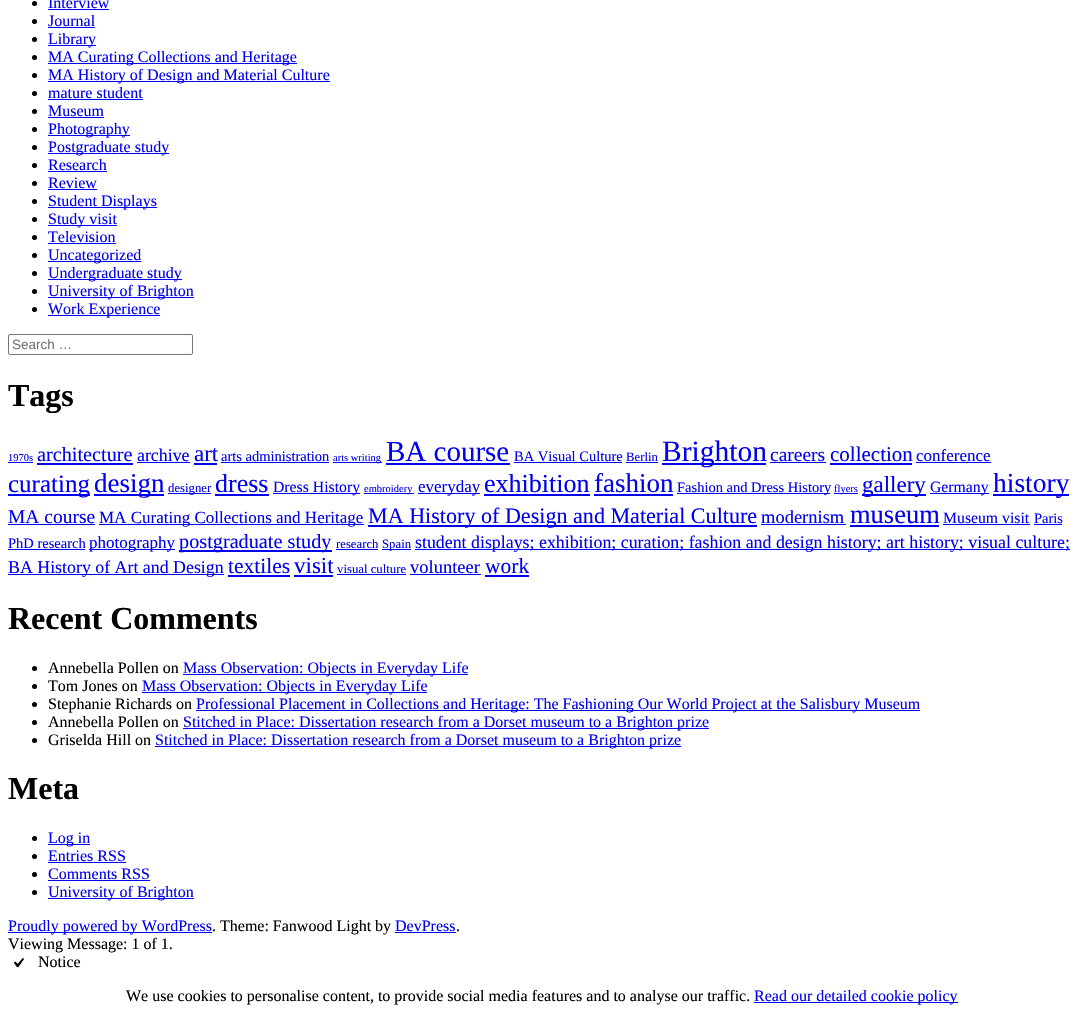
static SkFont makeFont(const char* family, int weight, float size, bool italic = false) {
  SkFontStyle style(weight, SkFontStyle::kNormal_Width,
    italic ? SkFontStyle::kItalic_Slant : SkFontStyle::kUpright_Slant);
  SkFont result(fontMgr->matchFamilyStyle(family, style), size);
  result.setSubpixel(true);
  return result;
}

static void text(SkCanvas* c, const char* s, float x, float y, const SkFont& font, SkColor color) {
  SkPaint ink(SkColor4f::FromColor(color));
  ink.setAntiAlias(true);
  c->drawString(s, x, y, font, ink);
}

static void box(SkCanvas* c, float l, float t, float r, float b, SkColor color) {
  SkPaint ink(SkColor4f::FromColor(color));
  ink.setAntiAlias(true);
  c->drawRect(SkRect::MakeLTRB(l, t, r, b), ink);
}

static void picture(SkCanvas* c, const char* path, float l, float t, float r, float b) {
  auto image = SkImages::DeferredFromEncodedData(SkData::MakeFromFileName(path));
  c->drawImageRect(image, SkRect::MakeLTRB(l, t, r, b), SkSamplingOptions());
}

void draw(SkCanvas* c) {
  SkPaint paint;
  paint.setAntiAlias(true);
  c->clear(0xffffffff);
  paint.setColor(0xff000000);
  c->drawCircle(34.5f, 3.5f, 2.5f, paint);
  SkFont face1 = makeFont("Liberation Serif", 400, 16);
  text(c, "Interview", 48, 8, face1, 0xff0000ee);
  box(c, 48, 9, 109, 10, 0xff0000ee);
  c->drawCircle(34.5f, 21.5f, 2.5f, paint);
  text(c, "Journal", 48, 26, face1, 0xff0000ee);
  box(c, 48, 27, 95, 28, 0xff0000ee);
  c->drawCircle(34.5f, 39.5f, 2.5f, paint);
  box(c, 48, 45, 96, 46, 0xff0000ee);
  text(c, "Library", 48, 44, face1, 0xff0000ee);
  c->drawCircle(34.5f, 57.5f, 2.5f, paint);
  box(c, 48, 63, 297, 64, 0xff0000ee);
  text(c, "MA Curating Collections and Heritage", 48, 62, face1, 0xff0000ee);
  c->drawCircle(34.5f, 75.5f, 2.5f, paint);
  box(c, 48, 81, 330, 82, 0xff0000ee);
  text(c, "MA History of Design and Material Culture", 48, 80, face1, 0xff0000ee);
  c->drawCircle(34.5f, 93.5f, 2.5f, paint);
  text(c, "mature student", 48, 98, face1, 0xff0000ee);
  box(c, 48, 99, 143, 100, 0xff0000ee);
  c->drawCircle(34.5f, 111.5f, 2.5f, paint);
  text(c, "Museum", 48, 116, face1, 0xff0000ee);
  box(c, 48, 117, 104, 118, 0xff0000ee);
  c->drawCircle(34.5f, 129.5f, 2.5f, paint);
  box(c, 48, 135, 130, 136, 0xff0000ee);
  text(c, "Photography", 48, 134, face1, 0xff0000ee);
  c->drawCircle(34.5f, 147.5f, 2.5f, paint);
  box(c, 48, 153, 169, 154, 0xff0000ee);
  text(c, "Postgraduate study", 48, 152, face1, 0xff0000ee);
  c->drawCircle(34.5f, 165.5f, 2.5f, paint);
  text(c, "Research", 48, 170, face1, 0xff0000ee);
  box(c, 48, 171, 107, 172, 0xff0000ee);
  c->drawCircle(34.5f, 183.5f, 2.5f, paint);
  text(c, "Review", 48, 188, face1, 0xff0000ee);
  box(c, 48, 189, 97, 190, 0xff0000ee);
  c->drawCircle(34.5f, 201.5f, 2.5f, paint);
  box(c, 48, 207, 157, 208, 0xff0000ee);
  text(c, "Student Displays", 48, 206, face1, 0xff0000ee);
  c->drawCircle(34.5f, 219.5f, 2.5f, paint);
  box(c, 48, 225, 117, 226, 0xff0000ee);
  text(c, "Study visit", 48, 224, face1, 0xff0000ee);
  c->drawCircle(34.5f, 237.5f, 2.5f, paint);
  text(c, "Television", 48, 242, face1, 0xff0000ee);
  box(c, 48, 243, 116, 244, 0xff0000ee);
  c->drawCircle(34.5f, 255.5f, 2.5f, paint);
  box(c, 48, 261, 141, 262, 0xff0000ee);
  text(c, "Uncategorized", 48, 260, face1, 0xff0000ee);
  c->drawCircle(34.5f, 273.5f, 2.5f, paint);
  box(c, 48, 279, 182, 280, 0xff0000ee);
  text(c, "Undergraduate study", 48, 278, face1, 0xff0000ee);
  c->drawCircle(34.5f, 291.5f, 2.5f, paint);
  box(c, 48, 297, 194, 298, 0xff0000ee);
  text(c, "University of Brighton", 48, 296, face1, 0xff0000ee);
  c->drawCircle(34.5f, 309.5f, 2.5f, paint);
  box(c, 48, 315, 160, 316, 0xff0000ee);
  text(c, "Work Experience", 48, 314, face1, 0xff0000ee);
  paint.setStyle(SkPaint::kStroke_Style);
  paint.setStrokeWidth(1);
  paint.setColor(0xff767676);
  c->drawRoundRect(SkRect::MakeLTRB(8.5f, 334.5f, 192.5f, 354.5f), 1.5f, 1.5f, paint);
  SkFont face2 = makeFont("Liberation Sans", 400, 13.5f);
  text(c, "Search …", 12, 349, face2, 0xff757575);
  SkFont face3 = makeFont("Liberation Serif", 700, 32);
  text(c, "Tags", 8, 406, face3, 0xff000000);
  SkFont face4 = makeFont("Liberation Serif", 400, 10.5f);
  text(c, "1970s", 8, 461, face4, 0xff0000ee);
  box(c, 8, 462, 33, 463, 0xff0000ee);
  SkFont face5 = makeFont("Liberation Serif", 400, 20.25f);
  text(c, "architecture", 37, 461, face5, 0xff0000ee);
  box(c, 37, 463, 133, 465, 0xff0000ee);
  SkFont face6 = makeFont("Liberation Serif", 400, 17.85f);
  text(c, "archive", 137, 461, face6, 0xff0000ee);
  box(c, 137, 462, 190, 463, 0xff0000ee);
  SkFont face7 = makeFont("Liberation Serif", 400, 23);
  text(c, "art", 194, 461, face7, 0xff0000ee);
  box(c, 194, 463, 217, 465, 0xff0000ee);
  SkFont face8 = makeFont("Liberation Serif", 400, 14.5f);
  text(c, "arts administration", 221, 461, face8, 0xff0000ee);
  box(c, 221, 462, 329, 463, 0xff0000ee);
  box(c, 333, 462, 382, 463, 0xff0000ee);
  text(c, "arts writing", 333, 461, face4, 0xff0000ee);
  SkFont face9 = makeFont("Liberation Serif", 400, 29);
  text(c, "BA course", 386, 461, face9, 0xff0000ee);
  box(c, 386, 463, 510, 465, 0xff0000ee);
  text(c, "BA Visual Culture", 514, 461, face8, 0xff0000ee);
  box(c, 514, 462, 622, 463, 0xff0000ee);
  SkFont face10 = makeFont("Liberation Serif", 400, 12.75f);
  text(c, "Berlin", 626, 461, face10, 0xff0000ee);
  box(c, 626, 462, 658, 463, 0xff0000ee);
  box(c, 662, 463, 766, 465, 0xff0000ee);
  SkFont face11 = makeFont("Liberation Serif", 400, 29.5f);
  text(c, "Brighton", 662, 461, face11, 0xff0000ee);
  SkFont face12 = makeFont("Liberation Serif", 400, 19.5f);
  text(c, "careers", 770, 461, face12, 0xff0000ee);
  box(c, 770, 462, 826, 463, 0xff0000ee);
  SkFont face13 = makeFont("Liberation Serif", 400, 21);
  text(c, "collection", 830, 461, face13, 0xff0000ee);
  box(c, 830, 463, 912, 465, 0xff0000ee);
  SkFont face14 = makeFont("Liberation Serif", 400, 17);
  text(c, "conference", 916, 461, face14, 0xff0000ee);
  box(c, 916, 462, 991, 463, 0xff0000ee);
  box(c, 8, 494, 90, 496, 0xff0000ee);
  SkFont face15 = makeFont("Liberation Serif", 400, 25);
  text(c, "curating", 8, 492, face15, 0xff0000ee);
  box(c, 94, 494, 164, 496, 0xff0000ee);
  SkFont face16 = makeFont("Liberation Serif", 400, 27);
  text(c, "design", 94, 492, face16, 0xff0000ee);
  box(c, 168, 493, 211, 494, 0xff0000ee);
  text(c, "designer", 168, 492, face10, 0xff0000ee);
  SkFont face17 = makeFont("Liberation Serif", 400, 26);
  text(c, "dress", 215, 492, face17, 0xff0000ee);
  box(c, 215, 494, 269, 496, 0xff0000ee);
  box(c, 273, 493, 360, 494, 0xff0000ee);
  SkFont face18 = makeFont("Liberation Serif", 400, 15.75f);
  text(c, "Dress History", 273, 492, face18, 0xff0000ee);
  box(c, 364, 493, 414, 494, 0xff0000ee);
  text(c, "embroidery", 364, 492, face4, 0xff0000ee);
  box(c, 418, 493, 480, 494, 0xff0000ee);
  text(c, "everyday", 418, 492, face14, 0xff0000ee);
  text(c, "exhibition", 484, 492, face17, 0xff0000ee);
  box(c, 484, 494, 590, 496, 0xff0000ee);
  text(c, "fashion", 594, 492, face16, 0xff0000ee);
  box(c, 594, 494, 673, 496, 0xff0000ee);
  box(c, 677, 493, 830, 494, 0xff0000ee);
  text(c, "Fashion and Dress History", 677, 492, face8, 0xff0000ee);
  box(c, 834, 493, 858, 494, 0xff0000ee);
  text(c, "flyers", 834, 492, face4, 0xff0000ee);
  box(c, 862, 494, 926, 496, 0xff0000ee);
  text(c, "gallery", 862, 492, face7, 0xff0000ee);
  box(c, 930, 493, 989, 494, 0xff0000ee);
  text(c, "Germany", 930, 492, face18, 0xff0000ee);
  box(c, 993, 494, 1069, 496, 0xff0000ee);
  SkFont face19 = makeFont("Liberation Serif", 400, 27.5f);
  text(c, "history", 993, 492, face19, 0xff0000ee);
  text(c, "MA course", 8, 523, face12, 0xff0000ee);
  box(c, 8, 524, 95, 525, 0xff0000ee);
  box(c, 99, 524, 364, 525, 0xff0000ee);
  text(c, "MA Curating Collections and Heritage", 99, 523, face14, 0xff0000ee);
  box(c, 368, 525, 757, 527, 0xff0000ee);
  SkFont face20 = makeFont("Liberation Serif", 400, 22.1f);
  text(c, "MA History of Design and Material Culture", 368, 523, face20, 0xff0000ee);
  SkFont face21 = makeFont("Liberation Serif", 400, 18.5f);
  text(c, "modernism", 761, 523, face21, 0xff0000ee);
  box(c, 761, 524, 846, 525, 0xff0000ee);
  SkFont face22 = makeFont("Liberation Serif", 400, 26.5f);
  text(c, "museum", 850, 523, face22, 0xff0000ee);
  box(c, 850, 525, 939, 527, 0xff0000ee);
  text(c, "Museum visit", 943, 523, face18, 0xff0000ee);
  box(c, 943, 524, 1030, 525, 0xff0000ee);
  text(c, "Paris", 1034, 523, face8, 0xff0000ee);
  box(c, 1034, 524, 1062, 525, 0xff0000ee);
  text(c, "PhD research", 8, 548, face8, 0xff0000ee);
  box(c, 8, 549, 85, 550, 0xff0000ee);
  box(c, 89, 549, 175, 550, 0xff0000ee);
  text(c, "photography", 89, 548, face14, 0xff0000ee);
  box(c, 179, 550, 332, 552, 0xff0000ee);
  text(c, "postgraduate study", 179, 548, face5, 0xff0000ee);
  text(c, "research", 336, 548, face10, 0xff0000ee);
  box(c, 336, 549, 378, 550, 0xff0000ee);
  box(c, 382, 549, 411, 550, 0xff0000ee);
  text(c, "Spain", 382, 548, face10, 0xff0000ee);
  box(c, 415, 549, 1070, 550, 0xff0000ee);
  text(c, "student displays; exhibition; curation; fashion and design history; art history; visual culture;", 415, 548, face6, 0xff0000ee);
  box(c, 8, 574, 224, 575, 0xff0000ee);
  text(c, "BA History of Art and Design", 8, 573, face6, 0xff0000ee);
  SkFont face23 = makeFont("Liberation Serif", 400, 21.5f);
  text(c, "textiles", 228, 573, face23, 0xff0000ee);
  box(c, 228, 575, 290, 577, 0xff0000ee);
  text(c, "visit", 294, 573, face7, 0xff0000ee);
  box(c, 294, 575, 333, 577, 0xff0000ee);
  text(c, "visual culture", 337, 573, face10, 0xff0000ee);
  box(c, 337, 574, 406, 575, 0xff0000ee);
  text(c, "volunteer", 410, 573, face21, 0xff0000ee);
  box(c, 410, 574, 481, 575, 0xff0000ee);
  text(c, "work", 485, 573, face23, 0xff0000ee);
  box(c, 485, 575, 529, 577, 0xff0000ee);
  text(c, "Recent Comments", 8, 629, face3, 0xff000000);
  paint.setStyle(SkPaint::kFill_Style);
  paint.setColor(0xff000000);
  c->drawCircle(34.5f, 668.5f, 2.5f, paint);
  text(c, "Annebella Pollen on", 48, 673, face1, 0xff000000);
  box(c, 183, 674, 468, 675, 0xff0000ee);
  text(c, "Mass Observation: Objects in Everyday Life", 183, 673, face1, 0xff0000ee);
  c->drawCircle(34.5f, 686.5f, 2.5f, paint);
  text(c, "Tom Jones on", 48, 691, face1, 0xff000000);
  box(c, 142, 692, 427, 693, 0xff0000ee);
  text(c, "Mass Observation: Objects in Everyday Life", 142, 691, face1, 0xff0000ee);
  c->drawCircle(34.5f, 704.5f, 2.5f, paint);
  text(c, "Stephanie Richards on", 48, 709, face1, 0xff000000);
  box(c, 196, 710, 920, 711, 0xff0000ee);
  text(c, "Professional Placement in Collections and Heritage: The Fashioning Our World Project at the Salisbury Museum", 196, 709, face1, 0xff0000ee);
  c->drawCircle(34.5f, 722.5f, 2.5f, paint);
  text(c, "Annebella Pollen on", 48, 727, face1, 0xff000000);
  box(c, 183, 728, 709, 729, 0xff0000ee);
  text(c, "Stitched in Place: Dissertation research from a Dorset museum to a Brighton prize", 183, 727, face1, 0xff0000ee);
  c->drawCircle(34.5f, 740.5f, 2.5f, paint);
  text(c, "Griselda Hill on", 48, 745, face1, 0xff000000);
  box(c, 155, 746, 681, 747, 0xff0000ee);
  text(c, "Stitched in Place: Dissertation research from a Dorset museum to a Brighton prize", 155, 745, face1, 0xff0000ee);
  text(c, "Meta", 8, 799, face3, 0xff000000);
  c->drawCircle(34.5f, 838.5f, 2.5f, paint);
  box(c, 48, 844, 90, 845, 0xff0000ee);
  text(c, "Log in", 48, 843, face1, 0xff0000ee);
  c->drawCircle(34.5f, 856.5f, 2.5f, paint);
  text(c, "Entries RSS", 48, 861, face1, 0xff0000ee);
  box(c, 48, 862, 126, 863, 0xff0000ee);
  c->drawCircle(34.5f, 874.5f, 2.5f, paint);
  text(c, "Comments RSS", 48, 879, face1, 0xff0000ee);
  box(c, 48, 880, 150, 881, 0xff0000ee);
  c->drawCircle(34.5f, 892.5f, 2.5f, paint);
  box(c, 48, 898, 194, 899, 0xff0000ee);
  text(c, "University of Brighton", 48, 897, face1, 0xff0000ee);
  box(c, 8, 932, 212, 933, 0xff0000ee);
  text(c, "Proudly powered by WordPress", 8, 931, face1, 0xff0000ee);
  text(c, ". Theme: Fanwood Light by", 212, 931, face1, 0xff000000);
  text(c, "DevPress", 395, 931, face1, 0xff0000ee);
  box(c, 395, 932, 456, 933, 0xff0000ee);
  text(c, ".", 456, 931, face1, 0xff000000);
  text(c, "Viewing Message: 1 of 1.", 8, 949, face1, 0xff000000);
  picture(c, "img_01.png", 13, 958, 25, 968);
  text(c, "Notice", 38, 967, face1, 0xff000000);
  text(c, "We use cookies to personalise content, to provide social media features and to analyse our traffic.", 126, 1001, face1, 0xff000000);
  box(c, 754, 1002, 958, 1003, 0xff0000ee);
  text(c, "Read our detailed cookie policy", 754, 1001, face1, 0xff0000ee);
}
